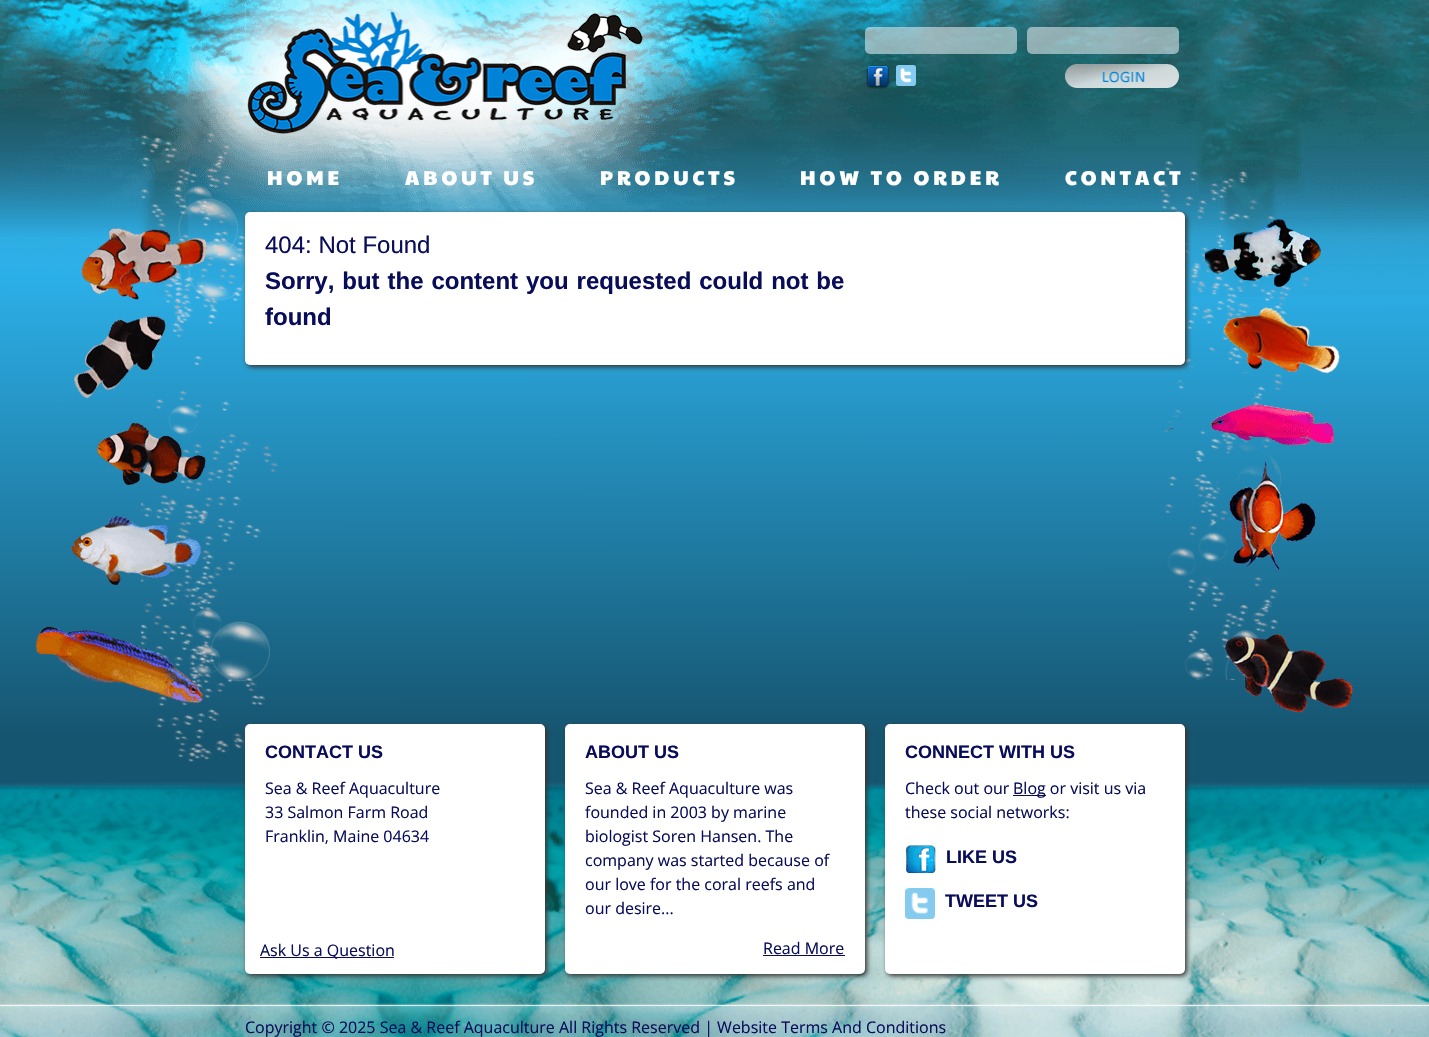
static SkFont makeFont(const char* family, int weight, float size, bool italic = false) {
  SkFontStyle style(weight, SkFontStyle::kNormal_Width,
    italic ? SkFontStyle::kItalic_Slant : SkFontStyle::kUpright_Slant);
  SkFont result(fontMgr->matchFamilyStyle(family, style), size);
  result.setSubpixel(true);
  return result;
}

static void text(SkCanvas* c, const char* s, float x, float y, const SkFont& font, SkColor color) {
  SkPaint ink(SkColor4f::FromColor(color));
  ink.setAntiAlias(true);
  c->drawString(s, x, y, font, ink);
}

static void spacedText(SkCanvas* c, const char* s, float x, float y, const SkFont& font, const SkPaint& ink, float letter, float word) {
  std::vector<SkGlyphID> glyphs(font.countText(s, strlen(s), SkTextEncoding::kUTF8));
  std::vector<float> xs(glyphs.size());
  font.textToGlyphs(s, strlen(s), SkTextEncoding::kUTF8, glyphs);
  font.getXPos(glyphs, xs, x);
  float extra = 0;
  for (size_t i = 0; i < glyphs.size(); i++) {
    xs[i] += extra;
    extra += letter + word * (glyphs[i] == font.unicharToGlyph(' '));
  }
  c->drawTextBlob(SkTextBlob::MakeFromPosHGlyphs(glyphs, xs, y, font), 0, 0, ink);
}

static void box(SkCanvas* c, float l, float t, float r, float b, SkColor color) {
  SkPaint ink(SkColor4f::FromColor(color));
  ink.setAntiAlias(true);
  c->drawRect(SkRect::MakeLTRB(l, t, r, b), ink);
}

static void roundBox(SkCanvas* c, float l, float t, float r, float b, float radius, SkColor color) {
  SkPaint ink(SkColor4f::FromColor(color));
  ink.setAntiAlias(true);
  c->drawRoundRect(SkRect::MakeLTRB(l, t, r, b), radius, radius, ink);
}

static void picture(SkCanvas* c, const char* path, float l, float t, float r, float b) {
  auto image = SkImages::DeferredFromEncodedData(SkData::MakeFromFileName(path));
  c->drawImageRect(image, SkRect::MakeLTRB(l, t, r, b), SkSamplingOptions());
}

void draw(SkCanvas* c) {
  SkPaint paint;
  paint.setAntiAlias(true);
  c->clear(0xffffffff);
  {
    const SkColor colors[] = {0xff000000, 0xff2eb7f2, 0xff165570};
    const float stops[] = {0, 0.23f, 0.7f};
    const SkPoint ends[] = {{714, -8}, {715, 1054}};
    paint.setShader(SkGradientShader::MakeLinear(ends, colors, stops, 3, SkTileMode::kClamp));
    paint.setAlpha(255);
  }
  c->drawRect(SkRect::MakeLTRB(0, 0, 1429, 789), paint);
  picture(c, "img_01.png", 0, 0, 1429, 297);
  picture(c, "img_02.png", 35, 133, 1354, 762);
  picture(c, "img_03.png", 245, 2, 643, 134);
  roundBox(c, 865, 27, 1017, 54, 5, 0x80ffffff);
  roundBox(c, 1027, 27, 1179, 54, 5, 0x80ffffff);
  picture(c, "img_04.png", 1065, 64, 1179, 88);
  picture(c, "img_05.png", 866, 65, 890, 89);
  picture(c, "img_06.png", 896, 65, 916, 86);
  SkFont face1 = makeFont("Paytone One", 400, 20);
  paint.setShader(nullptr);
  paint.setColor(0xffffffff);
  spacedText(c, "HOME", 267, 185, face1, paint, 4, 0);
  spacedText(c, "ABOUT US", 405, 185, face1, paint, 4, 0);
  spacedText(c, "PRODUCTS", 600, 185, face1, paint, 4, 0);
  spacedText(c, "HOW TO ORDER", 800, 185, face1, paint, 4, 0);
  spacedText(c, "CONTACT", 1065, 185, face1, paint, 4, 0);
  paint.setColor(0xff333333);
  paint.setMaskFilter(SkMaskFilter::MakeBlur(kNormal_SkBlurStyle, 2.5f));
  c->drawRoundRect(SkRect::MakeLTRB(247, 214, 1187, 367), 5, 5, paint);
  paint.setMaskFilter(nullptr);
  roundBox(c, 245, 212, 1185, 365, 5, 0xffffffff);
  SkFont face2 = makeFont("Liberation Sans", 400, 24);
  text(c, "404: Not Found", 265, 253, face2, 0xff080c59);
  SkFont face3 = makeFont("Liberation Sans", 700, 24);
  paint.setColor(0xff080c59);
  spacedText(c, "Sorry, but the content you requested could not be", 265, 289, face3, paint, 0, 1.25f);
  text(c, "found", 265, 325, face3, 0xff080c59);
  picture(c, "img_07.png", 0, 782, 1429, 1037);
  paint.setColor(0xff333333);
  paint.setMaskFilter(SkMaskFilter::MakeBlur(kNormal_SkBlurStyle, 2.5f));
  c->drawRoundRect(SkRect::MakeLTRB(247, 726, 547, 976), 5, 5, paint);
  paint.setMaskFilter(nullptr);
  roundBox(c, 245, 724, 545, 974, 5, 0xffffffff);
  SkFont face4 = makeFont("Liberation Sans", 700, 18);
  text(c, "CONTACT US", 265, 758, face4, 0xff080c59);
  SkFont face5 = makeFont("Open Sans", 400, 16);
  text(c, "Sea & Reef Aquaculture", 265, 794, face5, 0xff080c59);
  text(c, "33 Salmon Farm Road", 265, 818, face5, 0xff080c59);
  text(c, "Franklin, Maine 04634", 265, 842, face5, 0xff080c59);
  box(c, 260, 957, 394, 958, 0xff080c59);
  text(c, "Ask Us a Question", 260, 956, face5, 0xff080c59);
  paint.setMaskFilter(SkMaskFilter::MakeBlur(kNormal_SkBlurStyle, 2.5f));
  c->drawRoundRect(SkRect::MakeLTRB(567, 726, 867, 976), 5, 5, paint);
  paint.setMaskFilter(nullptr);
  roundBox(c, 565, 724, 865, 974, 5, 0xffffffff);
  text(c, "ABOUT US", 585, 758, face4, 0xff080c59);
  text(c, "Sea & Reef Aquaculture was", 585, 794, face5, 0xff080c59);
  text(c, "founded in 2003 by marine", 585, 818, face5, 0xff080c59);
  text(c, "biologist Soren Hansen. The", 585, 842, face5, 0xff080c59);
  text(c, "company was started because of", 585, 866, face5, 0xff080c59);
  text(c, "our love for the coral reefs and", 585, 890, face5, 0xff080c59);
  text(c, "our desire...", 585, 914, face5, 0xff080c59);
  text(c, "Read More", 763, 954, face5, 0xff080c59);
  box(c, 763, 955, 845, 956, 0xff080c59);
  paint.setMaskFilter(SkMaskFilter::MakeBlur(kNormal_SkBlurStyle, 2.5f));
  c->drawRoundRect(SkRect::MakeLTRB(887, 726, 1187, 976), 5, 5, paint);
  paint.setMaskFilter(nullptr);
  roundBox(c, 885, 724, 1185, 974, 5, 0xffffffff);
  text(c, "CONNECT WITH US", 905, 758, face4, 0xff080c59);
  text(c, "Check out our", 905, 794, face5, 0xff080c59);
  box(c, 1013, 795, 1046, 796, 0xff080c59);
  text(c, "Blog or visit us via", 1013, 794, face5, 0xff080c59);
  text(c, "these social networks:", 905, 818, face5, 0xff080c59);
  picture(c, "img_08.png", 905, 845, 936, 873);
  text(c, "LIKE US", 946, 863, face4, 0xff080c59);
  picture(c, "img_09.png", 905, 888, 935, 919);
  text(c, "TWEET US", 945, 907, face4, 0xff080c59);
  text(c, "Copyright © 2025 Sea & Reef Aquaculture All Rights Reserved | Website Terms And Conditions", 245, 1033, face5, 0xff080c59);
}
